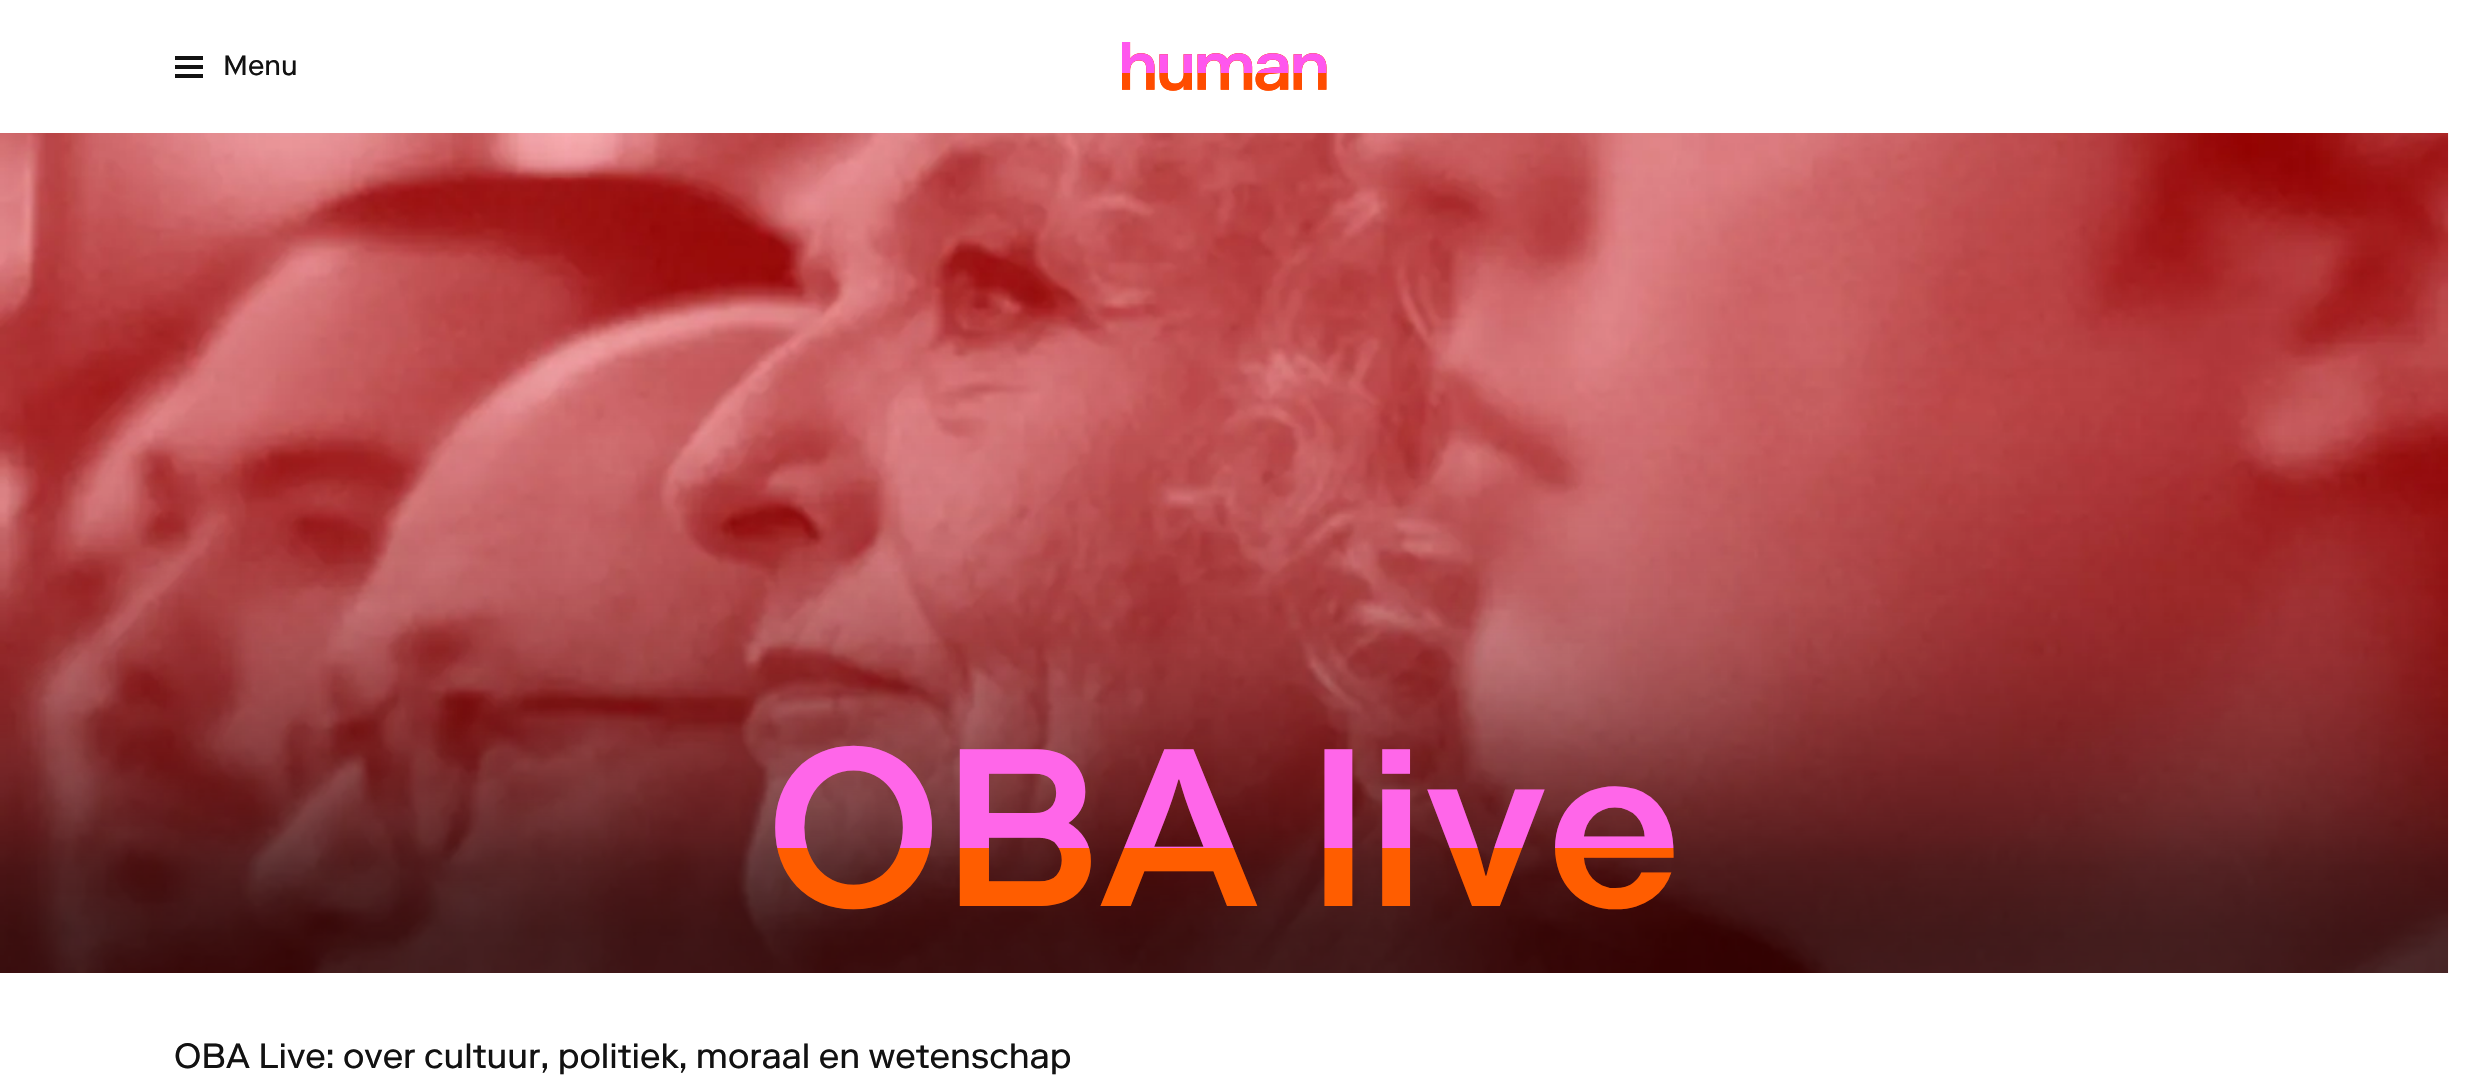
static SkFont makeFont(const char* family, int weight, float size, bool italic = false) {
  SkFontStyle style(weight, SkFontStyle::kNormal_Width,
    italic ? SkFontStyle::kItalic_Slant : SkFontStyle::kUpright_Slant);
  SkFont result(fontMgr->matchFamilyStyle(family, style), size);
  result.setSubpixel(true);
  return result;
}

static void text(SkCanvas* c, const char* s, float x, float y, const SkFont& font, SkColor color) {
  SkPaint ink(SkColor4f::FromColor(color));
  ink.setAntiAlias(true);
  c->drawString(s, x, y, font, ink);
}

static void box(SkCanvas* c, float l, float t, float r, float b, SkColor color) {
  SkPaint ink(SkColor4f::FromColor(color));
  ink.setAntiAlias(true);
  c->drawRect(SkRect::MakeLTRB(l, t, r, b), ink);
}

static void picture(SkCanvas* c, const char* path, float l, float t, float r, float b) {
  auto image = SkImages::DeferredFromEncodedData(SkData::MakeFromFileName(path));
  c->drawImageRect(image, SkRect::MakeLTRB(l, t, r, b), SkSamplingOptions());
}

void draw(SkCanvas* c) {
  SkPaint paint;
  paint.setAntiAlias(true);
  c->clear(0xffffffff);
  box(c, 175, 65, 203, 69, 0xff121212);
  box(c, 175, 56, 203, 60, 0xff121212);
  box(c, 175, 74, 203, 78, 0xff121212);
  SkFont face1 = makeFont("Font", 400, 28);
  text(c, "Menu", 223, 75, face1, 0xff121212);
  picture(c, "img_01.png", 1122, 42, 1327, 91);
  picture(c, "img_02.png", 0, 133, 2449, 973);
  SkFont face2 = makeFont("Font", 500, 224);
  {
    const SkColor colors[] = {0xffff66e9, 0xffff66e9, 0xffff5d00, 0xffff5d00, 0xffff66e9, 0xffff66e9};
    const float stops[] = {0, 0.3f, 0.3f, 0.8f, 0.8f, 1};
    const SkPoint ends[] = {{1224, 727}, {1224, 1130}};
    paint.setShader(SkGradientShader::MakeLinear(ends, colors, stops, 6, SkTileMode::kClamp));
    paint.setAlpha(255);
  }
  c->drawString("OBA live", 766, 906, face2, paint);
  SkFont face3 = makeFont("Font", 400, 35);
  text(c, "OBA Live: over cultuur, politiek, moraal en wetenschap", 174, 1068, face3, 0xff121212);
}
